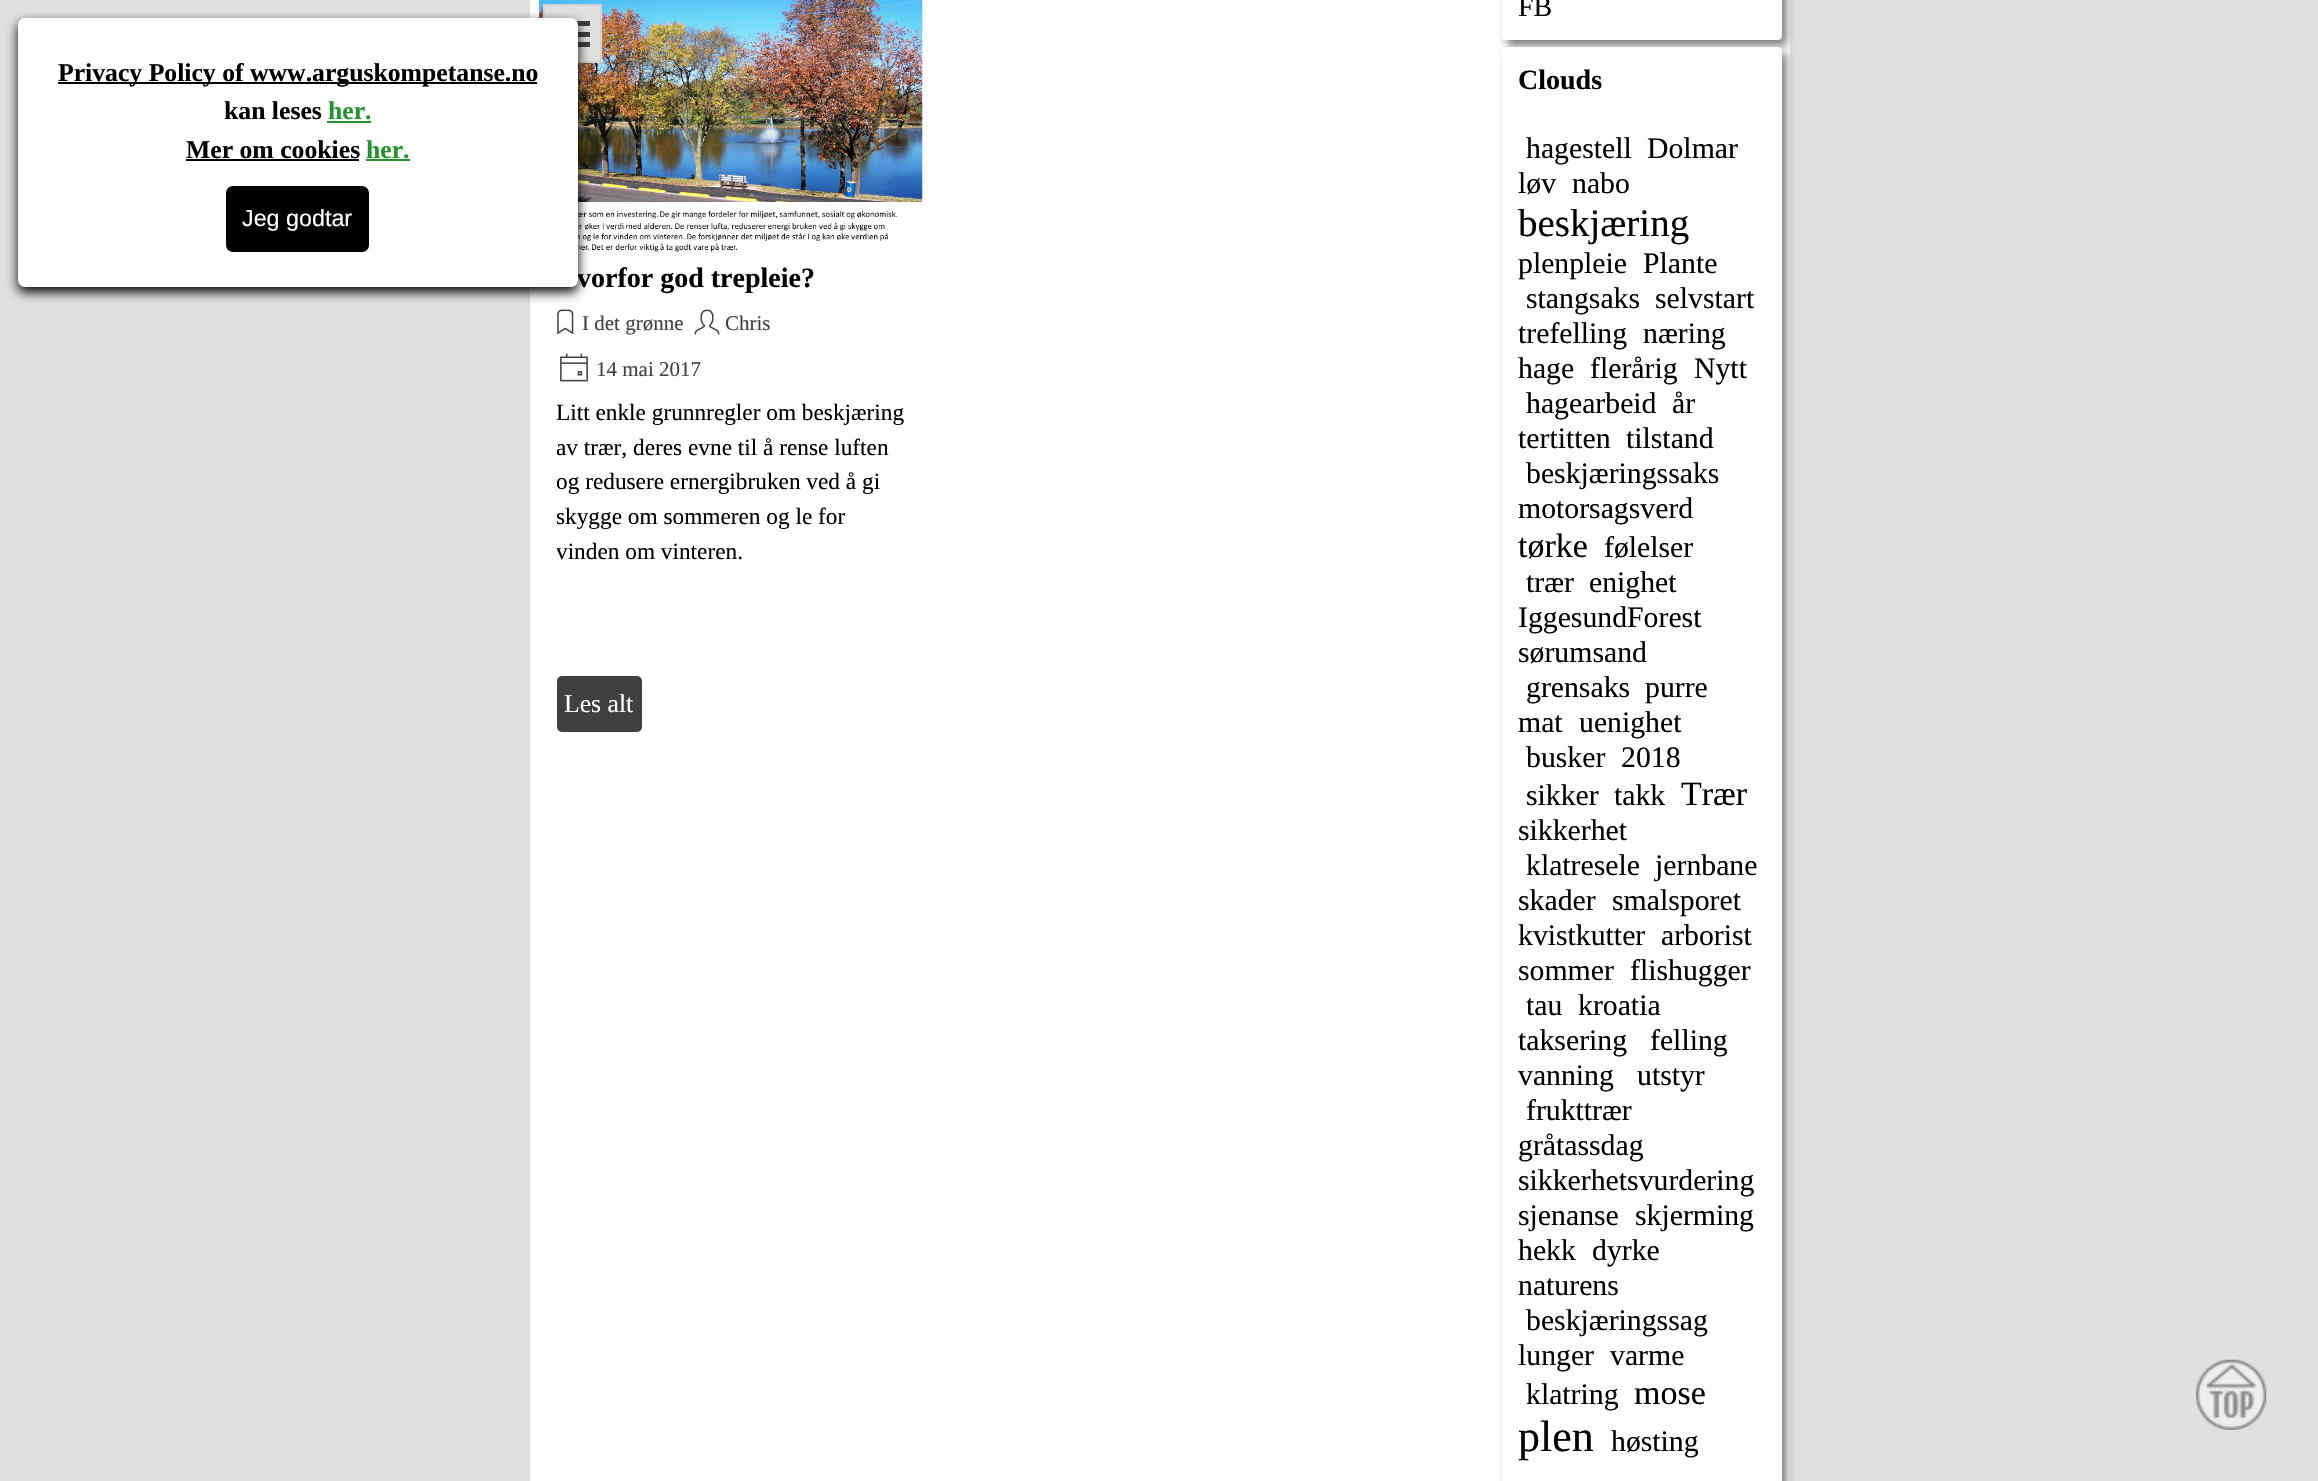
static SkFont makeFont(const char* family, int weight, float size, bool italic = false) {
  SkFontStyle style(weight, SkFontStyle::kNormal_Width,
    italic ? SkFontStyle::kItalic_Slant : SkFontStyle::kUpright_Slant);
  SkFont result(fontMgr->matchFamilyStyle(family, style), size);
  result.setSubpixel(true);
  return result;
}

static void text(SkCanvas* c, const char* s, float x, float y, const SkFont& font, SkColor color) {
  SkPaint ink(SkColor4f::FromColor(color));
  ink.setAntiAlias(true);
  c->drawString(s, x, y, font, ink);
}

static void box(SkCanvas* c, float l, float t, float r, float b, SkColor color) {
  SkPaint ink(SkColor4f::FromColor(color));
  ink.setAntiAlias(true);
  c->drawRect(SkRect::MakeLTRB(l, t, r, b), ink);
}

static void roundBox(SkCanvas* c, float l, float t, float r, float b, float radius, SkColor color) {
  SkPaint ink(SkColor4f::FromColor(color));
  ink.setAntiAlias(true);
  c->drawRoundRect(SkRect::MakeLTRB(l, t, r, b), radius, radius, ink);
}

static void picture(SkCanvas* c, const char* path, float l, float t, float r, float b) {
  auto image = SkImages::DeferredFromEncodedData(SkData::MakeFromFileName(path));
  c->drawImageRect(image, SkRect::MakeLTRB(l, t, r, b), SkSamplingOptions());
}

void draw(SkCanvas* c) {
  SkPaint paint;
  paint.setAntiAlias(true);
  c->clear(0xffe0e0e0);
  box(c, 530, 0, 1790, 1481, 0xffffffff);
  picture(c, "img_01.png", 539, 0, 923, 252);
  picture(c, "img_02.png", 557, 309, 574, 335);
  paint.setColor(0xffe0e0e0);
  c->drawRect(SkRect::MakeLTRB(544, 5, 601, 62), paint);
  paint.setStyle(SkPaint::kStroke_Style);
  paint.setStrokeWidth(2);
  paint.setColor(0xffd3d3d3);
  c->drawRect(SkRect::MakeLTRB(544, 5, 601, 62), paint);
  box(c, 576, 21, 590, 26, 0xff404040);
  box(c, 578, 32, 590, 37, 0xff404040);
  box(c, 578, 42, 590, 47, 0xff404040);
  paint.setStyle(SkPaint::kFill_Style);
  paint.setColor(0xff000000);
  paint.setMaskFilter(SkMaskFilter::MakeBlur(kNormal_SkBlurStyle, 6));
  c->drawRoundRect(SkRect::MakeLTRB(18, 23, 578, 292), 7, 7, paint);
  paint.setMaskFilter(nullptr);
  SkFont face1 = makeFont("Liberation Serif", 700, 28);
  text(c, "vorfor god trepleie?", 577, 287, face1, 0xff000000);
  roundBox(c, 18, 18, 578, 287, 7, 0xffffffff);
  box(c, 58, 82, 537, 84, 0xff000000);
  SkFont face2 = makeFont("Liberation Serif", 700, 25.7f);
  text(c, "Privacy Policy of www.arguskompetanse.no", 58, 81, face2, 0xff000000);
  text(c, "kan leses", 224, 119, face2, 0xff000000);
  text(c, "her.", 328, 119, face2, 0xff25922e);
  box(c, 327, 121, 371, 123, 0xff25922e);
  text(c, "Mer om cookies", 186, 158, face2, 0xff000000);
  box(c, 186, 159, 359, 161, 0xff000000);
  text(c, "her.", 366, 158, face2, 0xff25922e);
  box(c, 366, 159, 410, 161, 0xff25922e);
  roundBox(c, 226, 186, 369, 252, 7, 0xff000000);
  SkFont face3 = makeFont("Liberation Sans", 400, 23.3f);
  text(c, "Jeg godtar", 242, 226, face3, 0xffffffff);
  SkFont face4 = makeFont("Liberation Serif", 400, 21);
  text(c, "I det grønne", 582, 330, face4, 0xff404040);
  picture(c, "img_03.png", 694, 309, 720, 335);
  text(c, "Chris", 725, 330, face4, 0xff404040);
  picture(c, "img_04.png", 560, 353, 588, 382);
  text(c, "14 mai 2017", 596, 376, face4, 0xff404040);
  c->save();
  c->clipRect(SkRect::MakeLTRB(557, 390, 907, 676));
  SkFont face5 = makeFont("Liberation Serif", 400, 23.3f);
  text(c, "Litt enkle grunnregler om beskjæring", 556, 420, face5, 0xff000000);
  text(c, "av trær, deres evne til å rense luften", 556, 455, face5, 0xff000000);
  text(c, "og redusere ernergibruken ved å gi", 556, 489, face5, 0xff000000);
  text(c, "skygge om sommeren og le for", 556, 524, face5, 0xff000000);
  text(c, "vinden om vinteren.", 556, 559, face5, 0xff000000);
  c->restore();
  roundBox(c, 557, 676, 642, 732, 5, 0xff404040);
  SkFont face6 = makeFont("Liberation Serif", 400, 25.7f);
  text(c, "Les alt", 564, 712, face6, 0xffffffff);
  paint.setColor(0xff808080);
  paint.setMaskFilter(SkMaskFilter::MakeBlur(kNormal_SkBlurStyle, 4.5f));
  c->drawRoundRect(SkRect::MakeLTRB(1507, -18, 1787, 46), 4, 4, paint);
  paint.setMaskFilter(nullptr);
  roundBox(c, 1502, -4, 1782, 40, 4, 0xffffffff);
  SkFont face7 = makeFont("Liberation Serif", 400, 28);
  text(c, "FB", 1518, 16, face7, 0xff000000);
  paint.setMaskFilter(SkMaskFilter::MakeBlur(kNormal_SkBlurStyle, 4.5f));
  c->drawRoundRect(SkRect::MakeLTRB(1507, 53, 1787, 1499), 4, 4, paint);
  paint.setMaskFilter(nullptr);
  roundBox(c, 1502, 47, 1782, 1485, 4, 0xffffffff);
  text(c, "Clouds", 1518, 89, face1, 0xff000000);
  SkFont face8 = makeFont("Liberation Serif", 400, 29.75f);
  text(c, "hagestell", 1526, 158, face8, 0xff000000);
  text(c, "Dolmar", 1647, 158, face8, 0xff000000);
  text(c, "løv", 1518, 193, face8, 0xff000000);
  text(c, "nabo", 1572, 193, face8, 0xff000000);
  SkFont face9 = makeFont("Liberation Serif", 400, 39);
  text(c, "beskjæring", 1518, 236, face9, 0xff000000);
  text(c, "plenpleie", 1518, 273, face8, 0xff000000);
  text(c, "Plante", 1643, 273, face8, 0xff000000);
  text(c, "stangsaks", 1526, 308, face8, 0xff000000);
  text(c, "selvstart", 1655, 308, face8, 0xff000000);
  text(c, "trefelling", 1518, 343, face8, 0xff000000);
  text(c, "næring", 1643, 343, face8, 0xff000000);
  text(c, "hage", 1518, 378, face8, 0xff000000);
  text(c, "flerårig", 1590, 378, face8, 0xff000000);
  text(c, "Nytt", 1694, 378, face8, 0xff000000);
  text(c, "hagearbeid", 1526, 413, face8, 0xff000000);
  text(c, "år", 1672, 413, face8, 0xff000000);
  text(c, "tertitten", 1518, 448, face8, 0xff000000);
  text(c, "tilstand", 1626, 448, face8, 0xff000000);
  text(c, "beskjæringssaks", 1526, 483, face8, 0xff000000);
  text(c, "motorsagsverd", 1518, 518, face8, 0xff000000);
  SkFont face10 = makeFont("Liberation Serif", 400, 34);
  text(c, "tørke", 1518, 557, face10, 0xff000000);
  text(c, "følelser", 1604, 557, face8, 0xff000000);
  text(c, "trær", 1526, 592, face8, 0xff000000);
  text(c, "enighet", 1589, 592, face8, 0xff000000);
  text(c, "IggesundForest", 1518, 627, face8, 0xff000000);
  text(c, "sørumsand", 1518, 662, face8, 0xff000000);
  text(c, "grensaks", 1526, 697, face8, 0xff000000);
  text(c, "purre", 1645, 697, face8, 0xff000000);
  text(c, "mat", 1518, 732, face8, 0xff000000);
  text(c, "uenighet", 1579, 732, face8, 0xff000000);
  text(c, "busker", 1526, 767, face8, 0xff000000);
  text(c, "2018", 1621, 767, face8, 0xff000000);
  text(c, "sikker", 1526, 805, face8, 0xff000000);
  text(c, "takk", 1614, 805, face8, 0xff000000);
  text(c, "Trær", 1681, 805, face10, 0xff000000);
  text(c, "sikkerhet", 1518, 840, face8, 0xff000000);
  text(c, "klatresele", 1526, 875, face8, 0xff000000);
  text(c, "jernbane", 1655, 875, face8, 0xff000000);
  text(c, "skader", 1518, 910, face8, 0xff000000);
  text(c, "smalsporet", 1612, 910, face8, 0xff000000);
  text(c, "kvistkutter", 1518, 945, face8, 0xff000000);
  text(c, "arborist", 1661, 945, face8, 0xff000000);
  text(c, "sommer", 1518, 980, face8, 0xff000000);
  text(c, "flishugger", 1630, 980, face8, 0xff000000);
  text(c, "tau", 1526, 1015, face8, 0xff000000);
  text(c, "kroatia", 1578, 1015, face8, 0xff000000);
  text(c, "taksering", 1518, 1050, face8, 0xff000000);
  text(c, "felling", 1650, 1050, face8, 0xff000000);
  text(c, "vanning", 1518, 1085, face8, 0xff000000);
  text(c, "utstyr", 1637, 1085, face8, 0xff000000);
  text(c, "frukttrær", 1526, 1120, face8, 0xff000000);
  text(c, "gråtassdag", 1518, 1155, face8, 0xff000000);
  text(c, "sikkerhetsvurdering", 1518, 1190, face8, 0xff000000);
  text(c, "sjenanse", 1518, 1225, face8, 0xff000000);
  text(c, "skjerming", 1635, 1225, face8, 0xff000000);
  text(c, "hekk", 1518, 1260, face8, 0xff000000);
  text(c, "dyrke", 1592, 1260, face8, 0xff000000);
  text(c, "naturens", 1518, 1295, face8, 0xff000000);
  text(c, "beskjæringssag", 1526, 1330, face8, 0xff000000);
  text(c, "lunger", 1518, 1365, face8, 0xff000000);
  text(c, "varme", 1610, 1365, face8, 0xff000000);
  text(c, "klatring", 1526, 1404, face8, 0xff000000);
  text(c, "mose", 1634, 1404, face10, 0xff000000);
  SkFont face11 = makeFont("Liberation Serif", 400, 44);
  text(c, "plen", 1518, 1451, face11, 0xff000000);
  text(c, "høsting", 1611, 1451, face8, 0xff000000);
  picture(c, "img_05.png", 2196, 1359, 2267, 1430);
}
